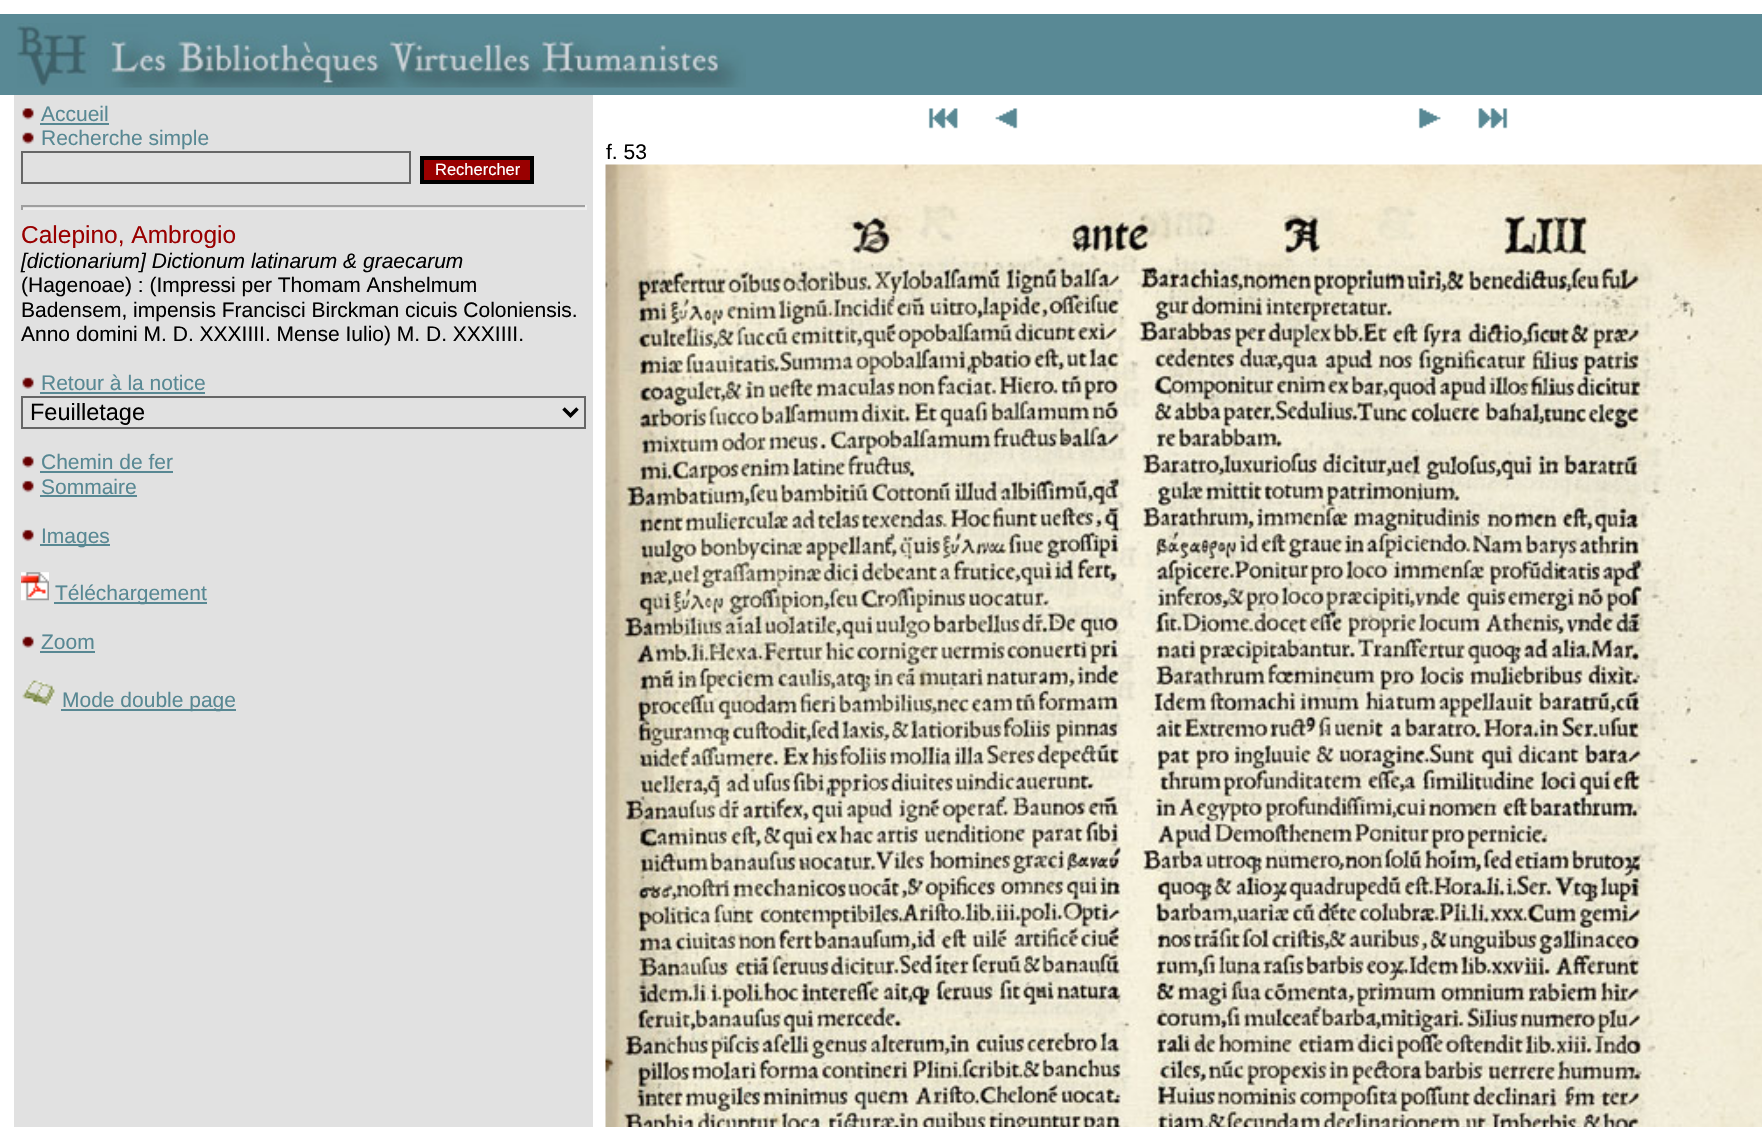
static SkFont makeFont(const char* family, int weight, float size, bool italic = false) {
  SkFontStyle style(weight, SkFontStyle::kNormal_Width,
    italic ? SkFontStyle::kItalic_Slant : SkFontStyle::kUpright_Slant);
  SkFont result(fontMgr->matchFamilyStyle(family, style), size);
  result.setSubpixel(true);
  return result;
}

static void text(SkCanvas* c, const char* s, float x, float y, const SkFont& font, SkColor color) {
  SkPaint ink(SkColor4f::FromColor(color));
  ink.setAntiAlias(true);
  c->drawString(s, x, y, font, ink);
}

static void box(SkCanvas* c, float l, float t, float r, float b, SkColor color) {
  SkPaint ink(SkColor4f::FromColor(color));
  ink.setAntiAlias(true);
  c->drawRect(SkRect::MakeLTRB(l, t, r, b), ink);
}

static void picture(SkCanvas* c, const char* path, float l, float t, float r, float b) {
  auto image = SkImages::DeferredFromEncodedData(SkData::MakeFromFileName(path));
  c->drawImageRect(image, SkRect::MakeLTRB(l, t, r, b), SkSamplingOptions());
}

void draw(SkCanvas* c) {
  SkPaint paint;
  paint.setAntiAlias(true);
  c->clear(0xffffffff);
  box(c, 0, 14, 1762, 95, 0xff598995);
  picture(c, "img_01.png", 17, 23, 746, 88);
  box(c, 14, 95, 593, 1127, 0xffe1e1e1);
  picture(c, "img_02.png", 22, 108, 34, 120);
  SkFont face1 = makeFont("Liberation Sans", 400, 21);
  text(c, "Accueil", 41, 121, face1, 0xff588893);
  box(c, 40, 123, 109, 125, 0xff588893);
  picture(c, "img_03.png", 22, 132, 35, 145);
  text(c, "Recherche simple", 41, 145, face1, 0xff588893);
  paint.setStyle(SkPaint::kStroke_Style);
  paint.setStrokeWidth(2);
  paint.setColor(0xff666666);
  c->drawRect(SkRect::MakeLTRB(22, 152, 410, 183), paint);
  paint.setStyle(SkPaint::kFill_Style);
  paint.setColor(0xff990000);
  c->drawRect(SkRect::MakeLTRB(422, 158, 532, 182), paint);
  paint.setStyle(SkPaint::kStroke_Style);
  paint.setStrokeWidth(4);
  paint.setColor(0xff000000);
  c->drawRect(SkRect::MakeLTRB(422, 158, 532, 182), paint);
  SkFont face2 = makeFont("Liberation Sans", 400, 16.5f);
  text(c, "Rechercher", 435, 175, face2, 0xffffffff);
  box(c, 21, 205, 586, 207, 0xff9f9f9f);
  box(c, 585, 205, 587, 210, 0xffeeeeee);
  box(c, 21, 208, 586, 210, 0xffeeeeee);
  box(c, 21, 205, 23, 210, 0xff9f9f9f);
  SkFont face3 = makeFont("Liberation Sans", 400, 24.5f);
  text(c, "Calepino, Ambrogio", 21, 243, face3, 0xff990000);
  SkFont face4 = makeFont("Liberation Sans", 400, 21, true);
  text(c, "[dictionarium] Dictionum latinarum & graecarum", 21, 268, face4, 0xff000000);
  text(c, "(Hagenoae) : (Impressi per Thomam Anshelmum", 21, 292, face1, 0xff000000);
  text(c, "Badensem, impensis Francisci Birckman cicuis Coloniensis.", 21, 317, face1, 0xff000000);
  text(c, "Anno domini M. D. XXXIIII. Mense Iulio) M. D. XXXIIII.", 21, 341, face1, 0xff000000);
  picture(c, "img_03.png", 22, 377, 35, 390);
  text(c, "Retour à la notice", 41, 390, face1, 0xff588893);
  box(c, 40, 392, 205, 394, 0xff588893);
  paint.setStrokeWidth(2);
  paint.setColor(0xff666666);
  c->drawRect(SkRect::MakeLTRB(22, 397, 585, 428), paint);
  paint.setStrokeWidth(3.5f);
  paint.setColor(0xff000000);
  c->drawPath(SkPathBuilder().moveTo(563.5f, 408.5f).lineTo(570.5f, 415.5f).lineTo(577.5f, 408.5f).detach(), paint);
  SkFont face5 = makeFont("Liberation Sans", 400, 23.5f);
  text(c, "Feuilletage", 30, 420, face5, 0xff000000);
  picture(c, "img_04.png", 22, 456, 35, 469);
  text(c, "Chemin de fer", 41, 469, face1, 0xff588893);
  box(c, 40, 471, 173, 473, 0xff588893);
  picture(c, "img_05.png", 22, 480, 34, 493);
  text(c, "Sommaire", 41, 494, face1, 0xff588893);
  box(c, 40, 495, 137, 497, 0xff588893);
  picture(c, "img_05.png", 22, 529, 34, 542);
  box(c, 40, 544, 110, 546, 0xff588893);
  text(c, "Images", 41, 543, face1, 0xff588893);
  picture(c, "img_06.png", 21, 572, 49, 601);
  box(c, 54, 602, 207, 604, 0xff588893);
  text(c, "Téléchargement", 55, 600, face1, 0xff588893);
  picture(c, "img_03.png", 22, 636, 35, 649);
  text(c, "Zoom", 41, 649, face1, 0xff588893);
  box(c, 40, 651, 95, 653, 0xff588893);
  picture(c, "img_07.png", 22, 680, 55, 706);
  box(c, 61, 709, 236, 711, 0xff588893);
  text(c, "Mode double page", 62, 707, face1, 0xff588893);
  picture(c, "img_08.png", 928, 108, 958, 129);
  picture(c, "img_09.png", 995, 108, 1018, 129);
  picture(c, "img_10.png", 1418, 108, 1441, 129);
  picture(c, "img_11.png", 1478, 108, 1508, 129);
  text(c, "f. 53", 606, 159, face1, 0xff000000);
  picture(c, "img_12.png", 605, 164, 1762, 1127);
}
